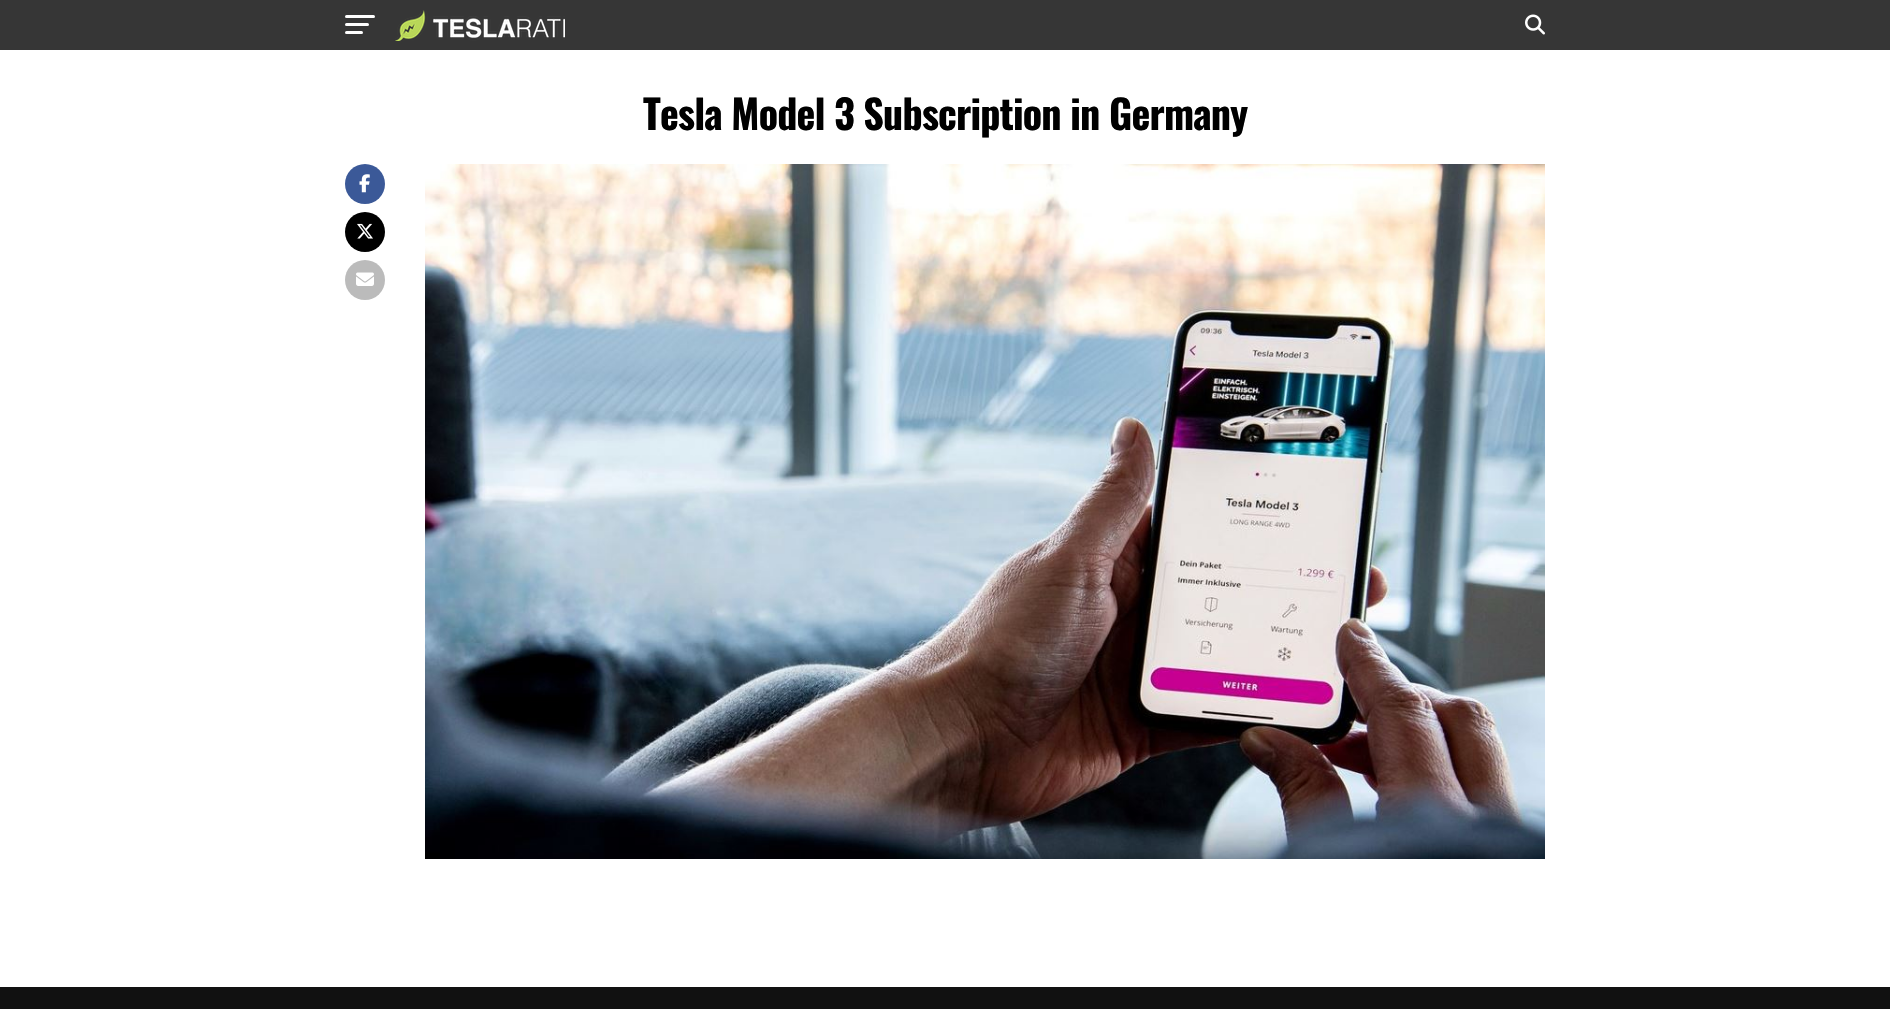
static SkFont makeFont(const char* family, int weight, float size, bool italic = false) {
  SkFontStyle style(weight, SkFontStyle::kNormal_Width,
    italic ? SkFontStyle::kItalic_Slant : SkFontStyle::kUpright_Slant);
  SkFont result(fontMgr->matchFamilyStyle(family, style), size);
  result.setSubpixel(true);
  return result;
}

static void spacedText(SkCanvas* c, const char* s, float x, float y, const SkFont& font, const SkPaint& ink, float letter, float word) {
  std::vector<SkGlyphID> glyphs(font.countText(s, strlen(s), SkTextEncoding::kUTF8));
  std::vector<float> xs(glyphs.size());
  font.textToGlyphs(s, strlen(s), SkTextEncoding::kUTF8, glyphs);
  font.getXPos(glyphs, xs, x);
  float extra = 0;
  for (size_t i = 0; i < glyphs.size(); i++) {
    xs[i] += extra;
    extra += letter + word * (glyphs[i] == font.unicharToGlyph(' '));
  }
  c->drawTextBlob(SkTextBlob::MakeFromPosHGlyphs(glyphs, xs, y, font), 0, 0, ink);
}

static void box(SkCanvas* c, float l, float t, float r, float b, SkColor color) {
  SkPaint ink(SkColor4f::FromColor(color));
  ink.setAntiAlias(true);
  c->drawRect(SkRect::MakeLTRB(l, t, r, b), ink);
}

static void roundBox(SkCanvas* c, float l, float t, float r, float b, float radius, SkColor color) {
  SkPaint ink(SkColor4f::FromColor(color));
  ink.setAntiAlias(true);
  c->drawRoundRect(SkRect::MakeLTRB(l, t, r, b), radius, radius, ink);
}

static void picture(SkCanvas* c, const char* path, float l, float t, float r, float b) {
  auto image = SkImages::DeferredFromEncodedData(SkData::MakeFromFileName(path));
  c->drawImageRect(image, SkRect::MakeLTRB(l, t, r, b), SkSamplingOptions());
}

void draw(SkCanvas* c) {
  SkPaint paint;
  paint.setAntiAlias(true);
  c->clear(0xffffffff);
  box(c, 0, 0, 1890, 50, 0xff363636);
  roundBox(c, 345, 15, 375, 18, 1.5f, 0xffffffff);
  roundBox(c, 345, 23, 369, 26, 1.5f, 0xffffffff);
  roundBox(c, 345, 31, 363, 34, 1.5f, 0xffffffff);
  picture(c, "img_01.png", 395, 10, 565, 41);
  picture(c, "img_02.png", 1525, 14, 1545, 35);
  SkFont face1 = makeFont("Oswald", 700, 40);
  paint.setColor(0xff000000);
  spacedText(c, "Tesla Model 3 Subscription in Germany", 643, 130, face1, paint, -0.8f, 0);
  paint.setColor(0xff3b5998);
  c->drawCircle(365, 184, 20, paint);
  picture(c, "img_03.png", 359, 174, 370, 193);
  paint.setColor(0xff000000);
  c->drawCircle(365, 232, 20, paint);
  picture(c, "img_04.png", 357, 223, 373, 239);
  paint.setColor(0xffbbbbbb);
  c->drawCircle(365, 280, 20, paint);
  picture(c, "img_05.png", 356, 272, 374, 286);
  picture(c, "img_06.png", 425, 164, 1545, 859);
  box(c, 0, 987, 1890, 1009, 0xff111111);
}
